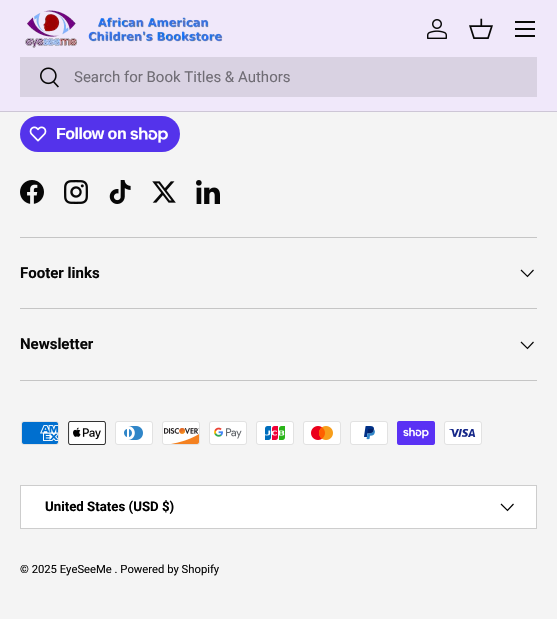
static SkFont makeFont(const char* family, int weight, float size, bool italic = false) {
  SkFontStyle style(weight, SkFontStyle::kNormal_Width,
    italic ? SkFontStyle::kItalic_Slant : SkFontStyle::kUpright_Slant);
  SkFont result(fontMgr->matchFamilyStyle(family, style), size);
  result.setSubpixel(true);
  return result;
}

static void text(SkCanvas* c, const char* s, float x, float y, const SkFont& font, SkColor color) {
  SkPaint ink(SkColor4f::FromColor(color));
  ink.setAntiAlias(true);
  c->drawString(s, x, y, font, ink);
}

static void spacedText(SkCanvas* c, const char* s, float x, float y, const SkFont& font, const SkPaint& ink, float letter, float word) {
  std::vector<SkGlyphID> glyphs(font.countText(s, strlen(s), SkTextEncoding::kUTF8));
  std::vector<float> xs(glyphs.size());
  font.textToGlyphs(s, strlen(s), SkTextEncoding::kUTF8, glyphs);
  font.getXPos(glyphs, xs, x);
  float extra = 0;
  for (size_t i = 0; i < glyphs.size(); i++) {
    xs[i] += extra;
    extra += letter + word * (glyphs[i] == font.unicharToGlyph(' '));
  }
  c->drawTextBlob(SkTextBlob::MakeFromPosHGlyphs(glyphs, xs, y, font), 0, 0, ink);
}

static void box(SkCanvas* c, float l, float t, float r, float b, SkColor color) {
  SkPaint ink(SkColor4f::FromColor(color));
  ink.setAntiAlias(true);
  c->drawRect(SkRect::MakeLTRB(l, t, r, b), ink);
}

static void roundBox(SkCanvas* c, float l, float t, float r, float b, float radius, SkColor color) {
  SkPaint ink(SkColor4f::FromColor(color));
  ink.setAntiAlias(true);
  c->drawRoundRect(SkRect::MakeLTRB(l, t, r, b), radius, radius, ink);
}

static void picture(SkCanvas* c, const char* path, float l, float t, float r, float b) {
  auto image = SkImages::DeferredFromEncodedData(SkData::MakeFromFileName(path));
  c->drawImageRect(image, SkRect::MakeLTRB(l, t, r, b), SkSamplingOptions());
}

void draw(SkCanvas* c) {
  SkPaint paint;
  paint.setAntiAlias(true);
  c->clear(0xfff4f4f4);
  box(c, 0, 0, 557, 111, 0xfff0e8fa);
  box(c, 0, 111, 557, 112, 0xffcdc6d6);
  picture(c, "img_01.png", 25, 10, 223, 48);
  picture(c, "img_02.png", 427, 19, 447, 39);
  picture(c, "img_03.png", 469, 18, 493, 39);
  box(c, 515, 21, 535, 23, 0xff070707);
  box(c, 515, 35, 535, 37, 0xff070707);
  box(c, 515, 28, 535, 30, 0xff070707);
  box(c, 20, 57, 537, 97, 0xffd9d2e2);
  picture(c, "img_04.png", 40, 67, 59, 88);
  SkFont face1 = makeFont("Roboto", 400, 15);
  text(c, "Search for Book Titles & Authors", 74, 82, face1, 0xff706d75);
  roundBox(c, 20, 116, 180, 152, 18, 0xff5433eb);
  picture(c, "img_05.png", 29, 126, 47, 142);
  SkFont face2 = makeFont("Liberation Sans", 700, 16);
  paint.setColor(0xffffffff);
  spacedText(c, "Follow on", 56, 139, face2, paint, -0.5f, 0);
  picture(c, "img_06.png", 130, 127, 168, 143);
  picture(c, "img_07.png", 20, 180, 44, 204);
  picture(c, "img_08.png", 64, 180, 88, 204);
  picture(c, "img_09.png", 109, 180, 131, 204);
  picture(c, "img_10.png", 152, 181, 176, 203);
  picture(c, "img_11.png", 196, 180, 220, 204);
  box(c, 20, 237, 537, 238, 0xffc5c5c5);
  box(c, 20, 308, 537, 309, 0xffc5c5c5);
  SkFont face3 = makeFont("Roboto", 700, 15);
  text(c, "Footer links", 20, 278, face3, 0xff070707);
  paint.setStyle(SkPaint::kStroke_Style);
  paint.setStrokeWidth(1.2f);
  paint.setColor(0xff070707);
  c->drawPath(SkPathBuilder().moveTo(533.5f, 270).lineTo(527.5f, 276.5f).lineTo(521, 270).detach(), paint);
  box(c, 20, 380, 537, 381, 0xffc5c5c5);
  text(c, "Newsletter", 20, 349, face3, 0xff070707);
  c->drawPath(SkPathBuilder().moveTo(533.5f, 342).lineTo(527.5f, 348.5f).lineTo(521, 342).detach(), paint);
  picture(c, "img_12.png", 21, 421, 59, 445);
  picture(c, "img_13.png", 68, 421, 106, 445);
  picture(c, "img_14.png", 115, 421, 153, 445);
  picture(c, "img_15.png", 162, 421, 200, 445);
  picture(c, "img_16.png", 209, 421, 247, 445);
  picture(c, "img_17.png", 256, 421, 294, 445);
  picture(c, "img_18.png", 303, 421, 341, 445);
  picture(c, "img_19.png", 350, 421, 388, 445);
  picture(c, "img_20.png", 397, 421, 435, 445);
  picture(c, "img_21.png", 444, 421, 482, 445);
  paint.setStyle(SkPaint::kFill_Style);
  paint.setColor(0xffffffff);
  c->drawRect(SkRect::MakeLTRB(20.5f, 485.5f, 536.5f, 528.5f), paint);
  paint.setStyle(SkPaint::kStroke_Style);
  paint.setStrokeWidth(1);
  paint.setColor(0xffcdcdcd);
  c->drawRect(SkRect::MakeLTRB(20.5f, 485.5f, 536.5f, 528.5f), paint);
  SkFont face4 = makeFont("Roboto", 700, 13.25f);
  text(c, "United States (USD $)", 45, 511, face4, 0xff000000);
  paint.setStrokeWidth(1.2f);
  paint.setColor(0xff000000);
  c->drawPath(SkPathBuilder().moveTo(513.5f, 504).lineTo(507.5f, 510.5f).lineTo(501, 504).detach(), paint);
  SkFont face5 = makeFont("Roboto", 400, 11.25f);
  text(c, "© 2025 EyeSeeMe . Powered by Shopify", 20, 573, face5, 0xff070707);
}
